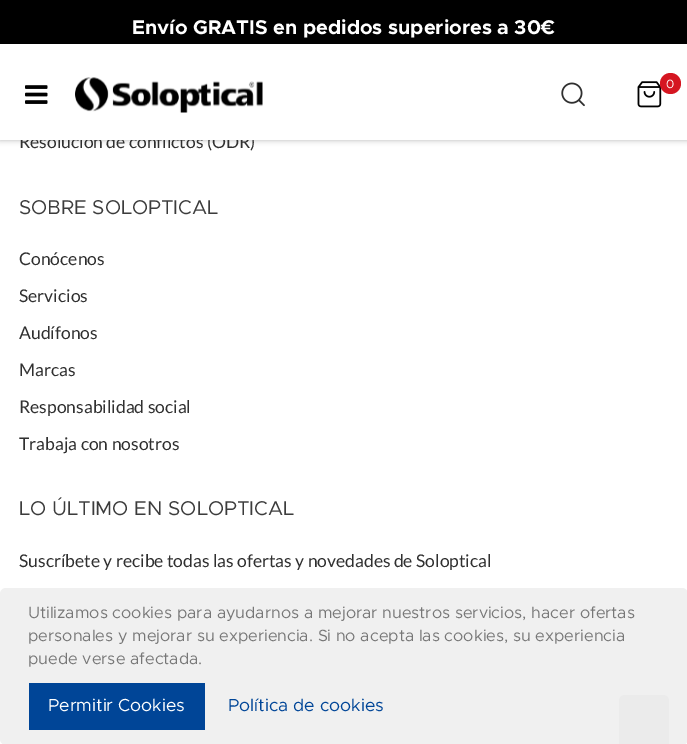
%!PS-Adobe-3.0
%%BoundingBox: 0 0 687 744
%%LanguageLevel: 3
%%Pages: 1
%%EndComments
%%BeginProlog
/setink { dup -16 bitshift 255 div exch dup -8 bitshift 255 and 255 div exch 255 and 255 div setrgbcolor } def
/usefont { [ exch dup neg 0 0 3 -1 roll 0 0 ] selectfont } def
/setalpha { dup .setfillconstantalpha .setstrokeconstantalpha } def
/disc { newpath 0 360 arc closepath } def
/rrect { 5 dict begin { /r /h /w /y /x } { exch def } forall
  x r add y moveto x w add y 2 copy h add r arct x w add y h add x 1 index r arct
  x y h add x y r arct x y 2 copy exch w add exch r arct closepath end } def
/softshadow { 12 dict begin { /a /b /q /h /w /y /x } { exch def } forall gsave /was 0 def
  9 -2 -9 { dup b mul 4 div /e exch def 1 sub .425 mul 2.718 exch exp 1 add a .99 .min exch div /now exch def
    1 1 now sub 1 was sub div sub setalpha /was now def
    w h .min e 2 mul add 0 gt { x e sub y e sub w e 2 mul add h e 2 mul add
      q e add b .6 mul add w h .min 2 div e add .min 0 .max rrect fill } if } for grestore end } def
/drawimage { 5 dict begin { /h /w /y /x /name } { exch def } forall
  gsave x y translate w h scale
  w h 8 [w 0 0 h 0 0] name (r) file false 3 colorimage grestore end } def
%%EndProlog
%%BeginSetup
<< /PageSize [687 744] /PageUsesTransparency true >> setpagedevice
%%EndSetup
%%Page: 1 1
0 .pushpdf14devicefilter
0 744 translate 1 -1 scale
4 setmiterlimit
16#FFFFFF setink
0 0 687 744 rectfill
16#000000 setink
0 0 687 44 rectfill
/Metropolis-Bold 20 usefont
16#FFFFFF setink
132 34 moveto (Envío GRATIS en pedidos superiores a 30€) show
16#000000 setink
0 44 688 96 0 3 0.3 softshadow
/Lato-Regular 17.5 usefont
16#303030 setink
19 148 moveto (Resolución de conflictos \(ODR\)) show
16#FFFFFF setink
0 44 687 96 rectfill
(img1.raw) 75 77 188 36 drawimage
(img2.raw) 25 85 23 19 drawimage
(img3.raw) 561 82 24 25 drawimage
(img4.raw) 637 81 25 27 drawimage
16#D51621 setink
670.5 83.5 10.5 disc fill
/Metropolis-Regular 12 usefont
16#FFFFFF setink
666 88 moveto (0) show
/Metropolis-Regular 20 usefont
16#3C3C3C setink
19 214 moveto (SOBRE SOLOPTICAL) show
/Lato-Regular 17.5 usefont
16#303030 setink
[
    [(Conócenos) 19 265]
    [(Servicios) 19 302]
    [(Audífonos) 19 339]
    [(Marcas) 19 376]
    [(Responsabilidad social) 19 413]
    [(Trabaja con nosotros) 19 450]
] { aload pop moveto show } forall
/Metropolis-Regular 20 usefont
16#3C3C3C setink
19 515 moveto (LO ÚLTIMO EN SOLOPTICAL) show
/Lato-Regular 17.5 usefont
16#303030 setink
19 567 moveto (Suscríbete y recibe todas las ofertas y novedades de Soloptical) show
16#F0F0F0 setink
0 588 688 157 6 rrect fill
16#EBEBEB setink
625 695 moveto 663 695 lineto 666.5 695 669 697.5 669 701 curveto 669 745 lineto 619 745 lineto 619 701 lineto 619 697.5 621.5 695 625 695 curveto closepath fill
/Metropolis-Regular 16.25 usefont
16#777777 setink
[
    [(Utilizamos cookies para ayudarnos a mejorar nuestros servicios, hacer ofertas) 28 618]
    [(personales y mejorar su experiencia. Si no acepta las cookies, su experiencia) 28 641]
    [(puede verse afectada.) 28 664]
] { aload pop moveto show } forall
16#004597 setink
29 683 176 47 rectfill
/Metropolis-Regular 17.5 usefont
16#FFFFFF setink
48 711 moveto (Permitir Cookies) show
16#004597 setink
228 711 moveto (Política de cookies) show
.poppdf14devicefilter showpage
%%EOF
